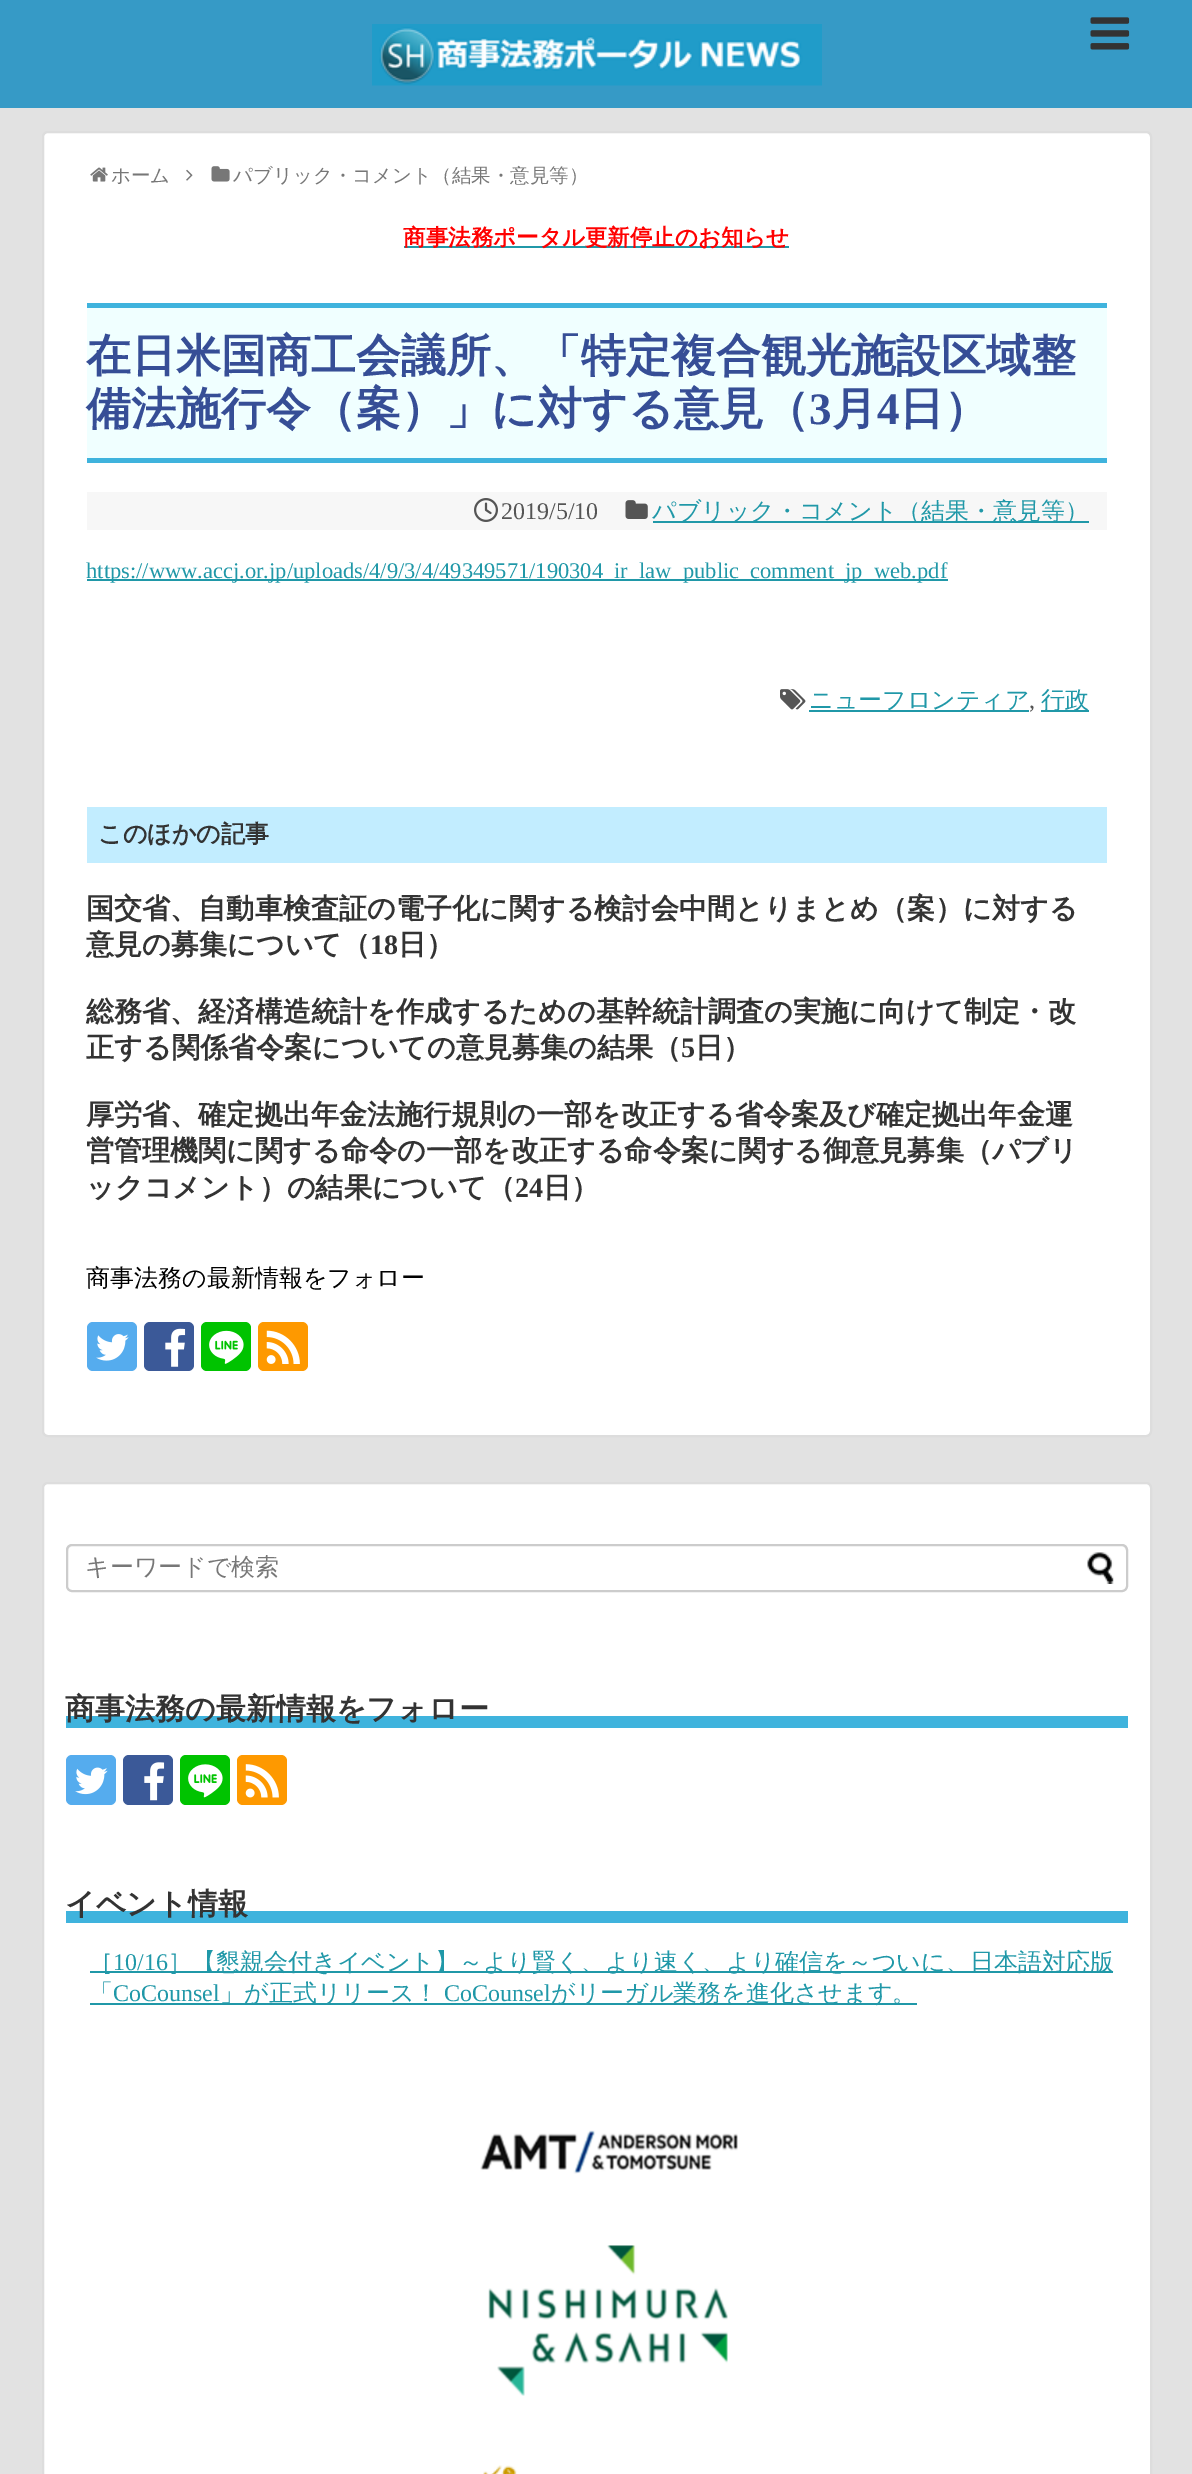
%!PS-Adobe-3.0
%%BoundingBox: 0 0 1192 2474
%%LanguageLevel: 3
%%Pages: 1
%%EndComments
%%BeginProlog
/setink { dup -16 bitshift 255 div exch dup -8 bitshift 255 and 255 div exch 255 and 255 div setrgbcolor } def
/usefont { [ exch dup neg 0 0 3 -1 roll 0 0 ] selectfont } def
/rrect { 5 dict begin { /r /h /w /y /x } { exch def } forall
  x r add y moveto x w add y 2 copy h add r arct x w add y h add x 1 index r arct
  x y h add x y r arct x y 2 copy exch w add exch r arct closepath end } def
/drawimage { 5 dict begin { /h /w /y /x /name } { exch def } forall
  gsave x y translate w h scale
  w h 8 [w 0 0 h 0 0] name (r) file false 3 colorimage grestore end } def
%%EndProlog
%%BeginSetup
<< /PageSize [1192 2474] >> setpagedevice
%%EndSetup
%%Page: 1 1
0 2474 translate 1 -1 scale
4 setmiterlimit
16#E2E2E2 setink
0 0 1192 2474 rectfill
16#369AC6 setink
0 0 1192 108 rectfill
(img1.raw) 372 24 450 62 drawimage
(img2.raw) 1090 17 40 33 drawimage
16#FFFFFF setink
43 132 1108 1304 5 rrect gsave fill grestore
16#DDDDDD setink
2 setlinewidth
stroke
(img3.raw) 90 167 18 15 drawimage
/WenQuanYiZenHei-Medium 19.5 usefont
16#777777 setink
111 182 moveto (ホーム) show
(img4.raw) 186 169 7 12 drawimage
(img5.raw) 211 166 19 16 drawimage
233 182 moveto (パブリック・コメント（結果・意見等）) show
16#2098A8 setink
404 246 385 2 rectfill
/WenQuanYiZenHei-Bold 22.5 usefont
16#FF0000 setink
403 245 moveto (商事法務ポータル更新停止のお知らせ) show
[
    [87 308 1020 150 16#F0FFFF]
    [87 303 1020 5 16#3FB3DD]
    [87 458 1020 5 16#3FB3DD]
] { aload pop setink rectfill } forall
/WenQuanYiZenHei-Bold 45 usefont
16#364E96 setink
86 371 moveto (在日米国商工会議所、「特定複合観光施設区域整) show
86 424 moveto (備法施行令（案）」に対する意見（) show
/LiberationSerif-Bold 45 usefont
809 424 moveto (3) show
/WenQuanYiZenHei-Bold 45 usefont
832 424 moveto (月) show
/LiberationSerif-Bold 45 usefont
877 424 moveto (4) show
/WenQuanYiZenHei-Bold 45 usefont
899 424 moveto (日）) show
16#F7F7F7 setink
87 492 1020 38 rectfill
(img6.raw) 474 498 24 24 drawimage
/LiberationSerif-Regular 24 usefont
16#555555 setink
501 519 moveto (2019/5/10) show
(img7.raw) 625 500 23 19 drawimage
16#2098A8 setink
653 521 436 2 rectfill
/WenQuanYiZenHei-Medium 24 usefont
652 519 moveto (パブリック・コメント（結果・意見等）) show
87 579 861 2 rectfill
/LiberationSerif-Regular 22.5 usefont
86 578 moveto (https://www.accj.or.jp/uploads/4/9/3/4/49349571/190304_ir_law_public_comment_jp_web.pdf) show
(img8.raw) 780 689 26 21 drawimage
809 710 220 2 rectfill
/WenQuanYiZenHei-Medium 24 usefont
809 708 moveto (ニューフロンティア) show
/LiberationSerif-Regular 24 usefont
16#555555 setink
1029 708 moveto (,) show
16#2098A8 setink
1041 710 48 2 rectfill
/WenQuanYiZenHei-Medium 24 usefont
1041 708 moveto (行政) show
16#C2EDFF setink
87 807 1020 56 rectfill
/WenQuanYiZenHei-Bold 24 usefont
16#333333 setink
98 842 moveto (このほかの記事) show
/WenQuanYiZenHei-Bold 28.1 usefont
86 918 moveto (国交省、自動車検査証の電子化に関する検討会中間とりまとめ（案）に対する) show
86 954 moveto (意見の募集について（) show
/LiberationSerif-Bold 28.1 usefont
370 954 moveto (18) show
/WenQuanYiZenHei-Bold 28.1 usefont
[
    [(日）) 398 954]
    [(総務省、経済構造統計を作成するための基幹統計調査の実施に向けて制定・改) 86 1021]
    [(正する関係省令案についての意見募集の結果（) 86 1057]
] { aload pop moveto show } forall
/LiberationSerif-Bold 28.1 usefont
681 1057 moveto (5) show
/WenQuanYiZenHei-Bold 28.1 usefont
[
    [(日）) 695 1057]
    [(厚労省、確定拠出年金法施行規則の一部を改正する省令案及び確定拠出年金運) 86 1124]
    [(営管理機関に関する命令の一部を改正する命令案に関する御意見募集（パブリ) 86 1160]
    [(ックコメント）の結果について（) 86 1197]
] { aload pop moveto show } forall
/LiberationSerif-Bold 28.1 usefont
515 1197 moveto (24) show
/WenQuanYiZenHei-Bold 28.1 usefont
543 1197 moveto (日）) show
/WenQuanYiZenHei-Medium 24 usefont
16#000000 setink
86 1286 moveto (商事法務の最新情報をフォロー) show
16#55ACEE setink
87 1322 50 49 6 rrect fill
(img9.raw) 96 1334 33 27 drawimage
16#3B5998 setink
144 1322 50 49 6 rrect fill
(img10.raw) 165 1328 21 39 drawimage
16#00C300 setink
201 1322 50 49 6 rrect fill
(img11.raw) 209 1330 35 34 drawimage
16#FE9900 setink
258 1322 50 49 6 rrect fill
(img12.raw) 266 1330 34 34 drawimage
16#FFFFFF setink
43 1483 1108 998 5 rrect gsave fill grestore
16#DDDDDD setink
stroke
16#ECECEC setink
72 1546 moveto 1122 1546 lineto 1124 1546 1126 1549 1126 1551 curveto 1126 1588 lineto 1127 1587 1127 1586 1127 1585 curveto 1127 1550 lineto 1127 1547 1125 1545 1122 1545 curveto 73 1545 lineto 70 1545 68 1547 68 1550 curveto 68 1551 lineto 68 1549 70 1546 72 1546 curveto closepath fill
16#CCCCCC setink
67 1545 1060 46 5 rrect stroke
16#777777 setink
85 1575 moveto (キーワードで検索) show
(img13.raw) 1087 1552 27 32 drawimage
16#3FB3DD setink
66 1716 1062 12 rectfill
/WenQuanYiZenHei-Bold 30 usefont
16#333333 setink
65 1719 moveto (商事法務の最新情報をフォロー) show
16#55ACEE setink
66 1755 50 50 6 rrect fill
(img14.raw) 75 1767 33 28 drawimage
16#3B5998 setink
123 1755 50 50 6 rrect fill
(img15.raw) 144 1762 21 39 drawimage
16#00C300 setink
180 1755 50 50 6 rrect fill
(img16.raw) 188 1764 35 34 drawimage
16#FE9900 setink
237 1755 50 50 6 rrect fill
(img17.raw) 245 1764 34 34 drawimage
16#3FB3DD setink
66 1911 1062 12 rectfill
16#333333 setink
65 1914 moveto (イベント情報) show
16#2098A8 setink
90 1971 1023 2 rectfill
/WenQuanYiZenHei-Medium 24 usefont
89 1970 moveto (［) show
/LiberationSerif-Regular 24 usefont
113 1970 moveto (10/16) show
/WenQuanYiZenHei-Medium 24 usefont
168 1970 moveto (］【懇親会付きイベント】～より賢く、より速く、より確信を～ついに、日本語対応版) show
89 2001 moveto (「) show
/LiberationSerif-Regular 24 usefont
113 2001 moveto (CoCounsel) show
90 2003 827 2 rectfill
/WenQuanYiZenHei-Medium 24 usefont
220 2001 moveto (」が正式リリース！) show
/LiberationSerif-Regular 24 usefont
444 2001 moveto (CoCounsel) show
/WenQuanYiZenHei-Medium 24 usefont
551 2001 moveto (がリーガル業務を進化させます。) show
(img18.raw) 480 2130 258 44 drawimage
(img19.raw) 488 2245 240 151 drawimage
(img20.raw) 483 2465 34 9 drawimage
showpage
%%EOF
